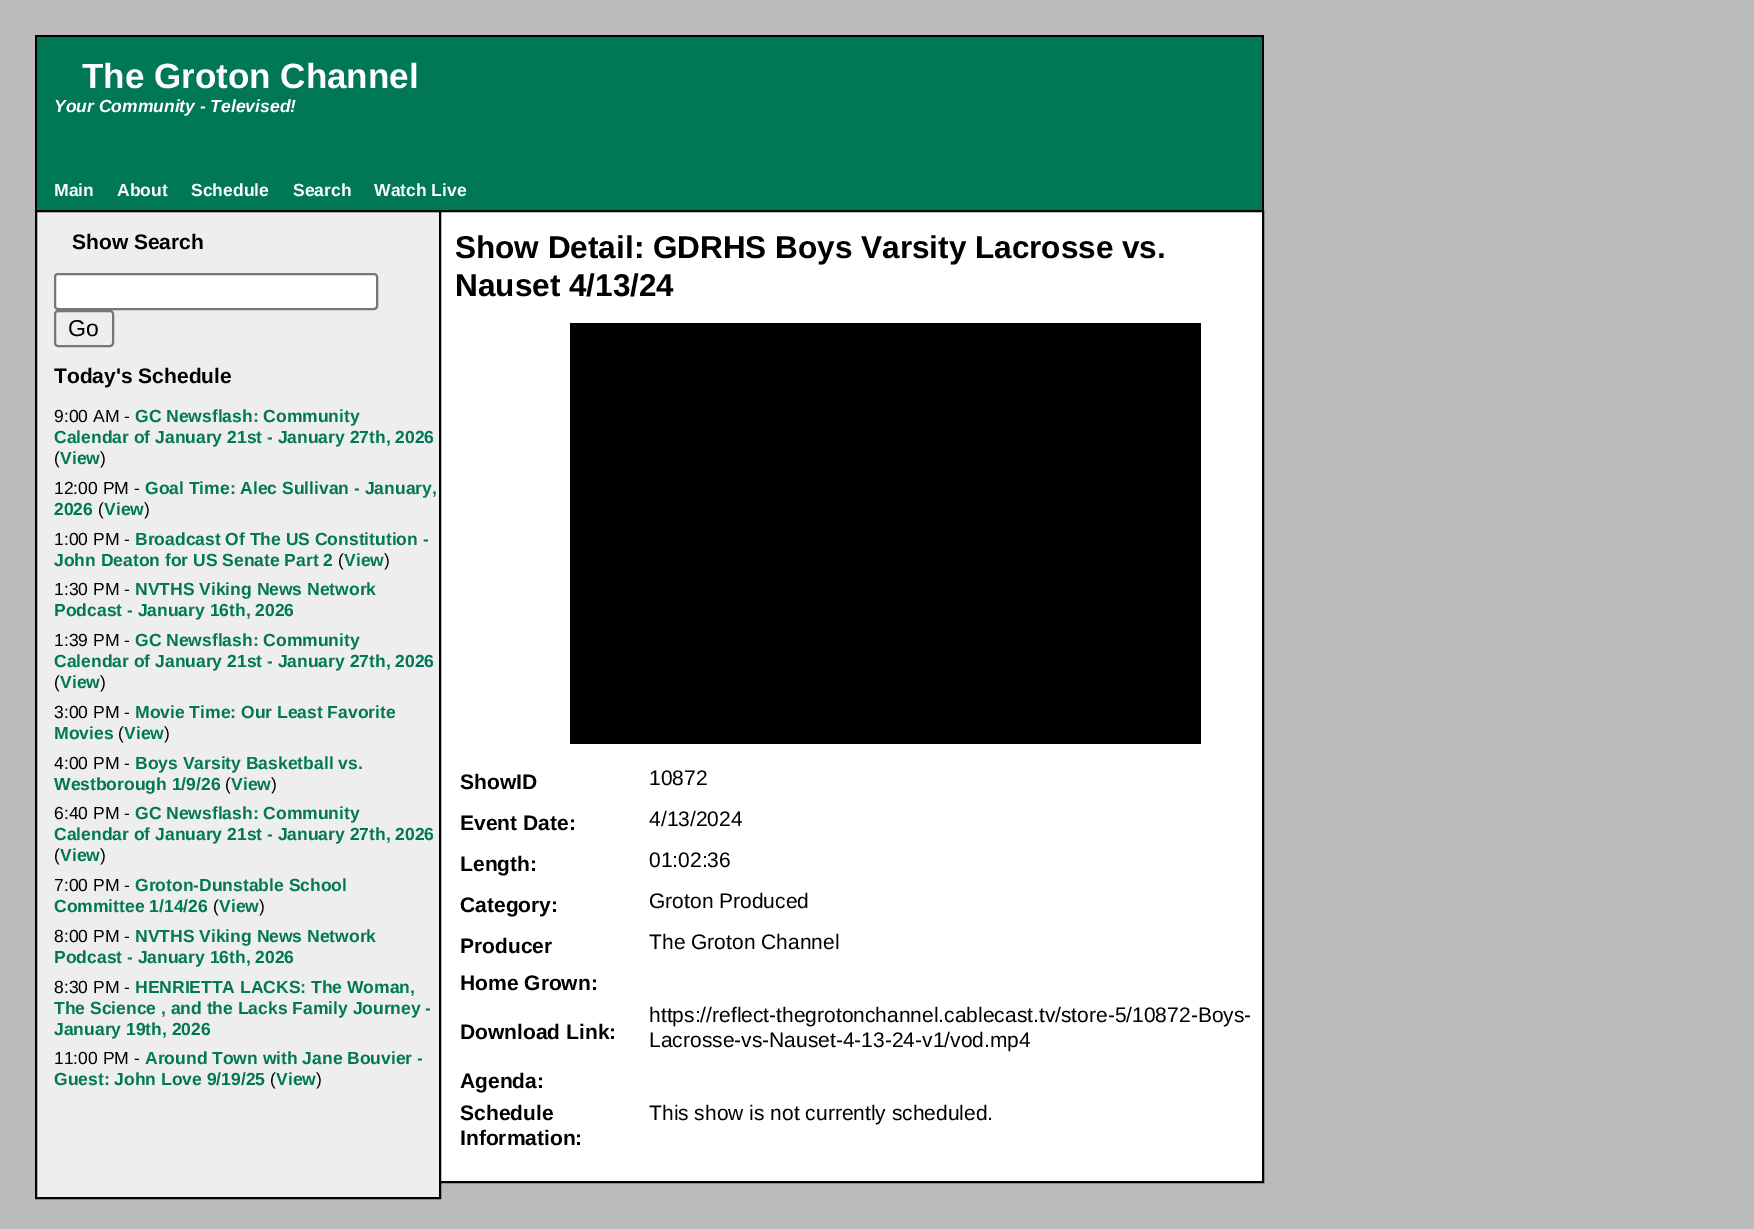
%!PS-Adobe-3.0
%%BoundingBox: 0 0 1754 1229
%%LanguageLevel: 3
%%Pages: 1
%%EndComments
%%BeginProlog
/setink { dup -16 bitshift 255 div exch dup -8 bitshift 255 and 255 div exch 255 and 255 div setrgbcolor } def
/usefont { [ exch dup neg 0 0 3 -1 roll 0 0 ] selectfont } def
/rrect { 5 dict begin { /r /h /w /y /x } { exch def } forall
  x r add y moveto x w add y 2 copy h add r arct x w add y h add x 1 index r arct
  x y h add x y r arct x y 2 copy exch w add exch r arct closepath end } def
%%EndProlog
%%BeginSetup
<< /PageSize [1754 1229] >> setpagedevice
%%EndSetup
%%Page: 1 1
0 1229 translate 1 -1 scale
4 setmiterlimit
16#BBBBBB setink
0 0 1754 1229 rectfill
[
    [37 37 1225 173 16#007755]
    [35 35 1229 2 16#000000]
    [1262 35 2 175 16#000000]
    [35 35 2 175 16#000000]
] { aload pop setink rectfill } forall
/LiberationSans-Bold 35 usefont
16#FFFFFF setink
82 88 moveto (The Groton Channel) show
/LiberationSans-BoldItalic 17.5 usefont
54 112 moveto (Your Community - Televised!) show
/LiberationSans-Bold 17.5 usefont
[
    [(Main) 54 196]
    [(About) 117 196]
    [(Schedule) 191 196]
    [(Search) 293 196]
    [(Watch Live) 374 196]
] { aload pop moveto show } forall
441 212 821 969 rectfill
16#000000 setink
2 setlinewidth
437 211 826 971 rectstroke
16#EEEEEE setink
36 211 moveto 440 211 lineto 440 1198 lineto 36 1198 lineto closepath gsave fill grestore
16#000000 setink
stroke
/LiberationSans-Bold 21 usefont
72 249 moveto (Show Search) show
16#FFFFFF setink
55 274 322 35 3 rrect gsave fill grestore
16#767676 setink
stroke
55 311 58 35 3 rrect stroke
/LiberationSans-Regular 23 usefont
16#000000 setink
68 336 moveto (Go) show
/LiberationSans-Bold 21 usefont
54 383 moveto (Today's Schedule) show
/LiberationSans-Regular 17.5 usefont
54 422 moveto (9:00 AM -) show
/LiberationSans-Bold 17.5 usefont
16#007755 setink
135 422 moveto (GC Newsflash: Community) show
54 443 moveto (Calendar of January 21st - January 27th, 2026) show
/LiberationSans-Regular 17.5 usefont
16#000000 setink
54 464 moveto (\() show
/LiberationSans-Bold 17.5 usefont
16#007755 setink
60 464 moveto (View) show
/LiberationSans-Regular 17.5 usefont
16#000000 setink
100 464 moveto (\)) show
54 494 moveto (12:00 PM -) show
/LiberationSans-Bold 17.5 usefont
16#007755 setink
145 494 moveto (Goal Time: Alec Sullivan - January,) show
54 515 moveto (2026) show
/LiberationSans-Regular 17.5 usefont
16#000000 setink
98 515 moveto (\() show
/LiberationSans-Bold 17.5 usefont
16#007755 setink
104 515 moveto (View) show
/LiberationSans-Regular 17.5 usefont
16#000000 setink
144 515 moveto (\)) show
54 545 moveto (1:00 PM -) show
/LiberationSans-Bold 17.5 usefont
16#007755 setink
135 545 moveto (Broadcast Of The US Constitution -) show
54 566 moveto (John Deaton for US Senate Part 2) show
/LiberationSans-Regular 17.5 usefont
16#000000 setink
338 566 moveto (\() show
/LiberationSans-Bold 17.5 usefont
16#007755 setink
344 566 moveto (View) show
/LiberationSans-Regular 17.5 usefont
16#000000 setink
384 566 moveto (\)) show
54 595 moveto (1:30 PM -) show
/LiberationSans-Bold 17.5 usefont
16#007755 setink
135 595 moveto (NVTHS Viking News Network) show
54 616 moveto (Podcast - January 16th, 2026) show
/LiberationSans-Regular 17.5 usefont
16#000000 setink
54 646 moveto (1:39 PM -) show
/LiberationSans-Bold 17.5 usefont
16#007755 setink
135 646 moveto (GC Newsflash: Community) show
54 667 moveto (Calendar of January 21st - January 27th, 2026) show
/LiberationSans-Regular 17.5 usefont
16#000000 setink
54 688 moveto (\() show
/LiberationSans-Bold 17.5 usefont
16#007755 setink
60 688 moveto (View) show
/LiberationSans-Regular 17.5 usefont
16#000000 setink
100 688 moveto (\)) show
54 718 moveto (3:00 PM -) show
/LiberationSans-Bold 17.5 usefont
16#007755 setink
135 718 moveto (Movie Time: Our Least Favorite) show
54 739 moveto (Movies) show
/LiberationSans-Regular 17.5 usefont
16#000000 setink
118 739 moveto (\() show
/LiberationSans-Bold 17.5 usefont
16#007755 setink
124 739 moveto (View) show
/LiberationSans-Regular 17.5 usefont
16#000000 setink
164 739 moveto (\)) show
54 769 moveto (4:00 PM -) show
/LiberationSans-Bold 17.5 usefont
16#007755 setink
135 769 moveto (Boys Varsity Basketball vs.) show
54 790 moveto (Westborough 1/9/26) show
/LiberationSans-Regular 17.5 usefont
16#000000 setink
225 790 moveto (\() show
/LiberationSans-Bold 17.5 usefont
16#007755 setink
231 790 moveto (View) show
/LiberationSans-Regular 17.5 usefont
16#000000 setink
271 790 moveto (\)) show
54 819 moveto (6:40 PM -) show
/LiberationSans-Bold 17.5 usefont
16#007755 setink
135 819 moveto (GC Newsflash: Community) show
54 840 moveto (Calendar of January 21st - January 27th, 2026) show
/LiberationSans-Regular 17.5 usefont
16#000000 setink
54 861 moveto (\() show
/LiberationSans-Bold 17.5 usefont
16#007755 setink
60 861 moveto (View) show
/LiberationSans-Regular 17.5 usefont
16#000000 setink
100 861 moveto (\)) show
54 891 moveto (7:00 PM -) show
/LiberationSans-Bold 17.5 usefont
16#007755 setink
135 891 moveto (Groton-Dunstable School) show
54 912 moveto (Committee 1/14/26) show
/LiberationSans-Regular 17.5 usefont
16#000000 setink
213 912 moveto (\() show
/LiberationSans-Bold 17.5 usefont
16#007755 setink
219 912 moveto (View) show
/LiberationSans-Regular 17.5 usefont
16#000000 setink
259 912 moveto (\)) show
54 942 moveto (8:00 PM -) show
/LiberationSans-Bold 17.5 usefont
16#007755 setink
135 942 moveto (NVTHS Viking News Network) show
54 963 moveto (Podcast - January 16th, 2026) show
/LiberationSans-Regular 17.5 usefont
16#000000 setink
54 993 moveto (8:30 PM -) show
/LiberationSans-Bold 17.5 usefont
16#007755 setink
[
    [(HENRIETTA LACKS: The Woman,) 135 993]
    [(The Science , and the Lacks Family Journey -) 54 1014]
    [(January 19th, 2026) 54 1035]
] { aload pop moveto show } forall
/LiberationSans-Regular 17.5 usefont
16#000000 setink
54 1064 moveto (11:00 PM -) show
/LiberationSans-Bold 17.5 usefont
16#007755 setink
145 1064 moveto (Around Town with Jane Bouvier -) show
54 1085 moveto (Guest: John Love 9/19/25) show
/LiberationSans-Regular 17.5 usefont
16#000000 setink
270 1085 moveto (\() show
/LiberationSans-Bold 17.5 usefont
16#007755 setink
276 1085 moveto (View) show
/LiberationSans-Regular 17.5 usefont
16#000000 setink
316 1085 moveto (\)) show
/LiberationSans-Bold 31.5 usefont
455 258 moveto (Show Detail: GDRHS Boys Varsity Lacrosse vs.) show
455 296 moveto (Nauset 4/13/24) show
570 323 631 421 rectfill
/LiberationSans-Bold 21 usefont
460 789 moveto (ShowID) show
/LiberationSans-Regular 21 usefont
649 785 moveto (10872) show
/LiberationSans-Bold 21 usefont
460 830 moveto (Event Date:) show
/LiberationSans-Regular 21 usefont
649 826 moveto (4/13/2024) show
/LiberationSans-Bold 21 usefont
460 871 moveto (Length:) show
/LiberationSans-Regular 21 usefont
649 867 moveto (01:02:36) show
/LiberationSans-Bold 21 usefont
460 912 moveto (Category:) show
/LiberationSans-Regular 21 usefont
649 908 moveto (Groton Produced) show
/LiberationSans-Bold 21 usefont
460 953 moveto (Producer) show
/LiberationSans-Regular 21 usefont
649 949 moveto (The Groton Channel) show
/LiberationSans-Bold 21 usefont
460 990 moveto (Home Grown:) show
460 1039 moveto (Download Link:) show
/LiberationSans-Regular 21 usefont
649 1022 moveto (https://reflect-thegrotonchannel.cablecast.tv/store-5/10872-Boys-) show
649 1047 moveto (Lacrosse-vs-Nauset-4-13-24-v1/vod.mp4) show
/LiberationSans-Bold 21 usefont
[
    [(Agenda:) 460 1088]
    [(Schedule) 460 1120]
    [(Information:) 460 1145]
] { aload pop moveto show } forall
/LiberationSans-Regular 21 usefont
649 1120 moveto (This show is not currently scheduled.) show
showpage
%%EOF
